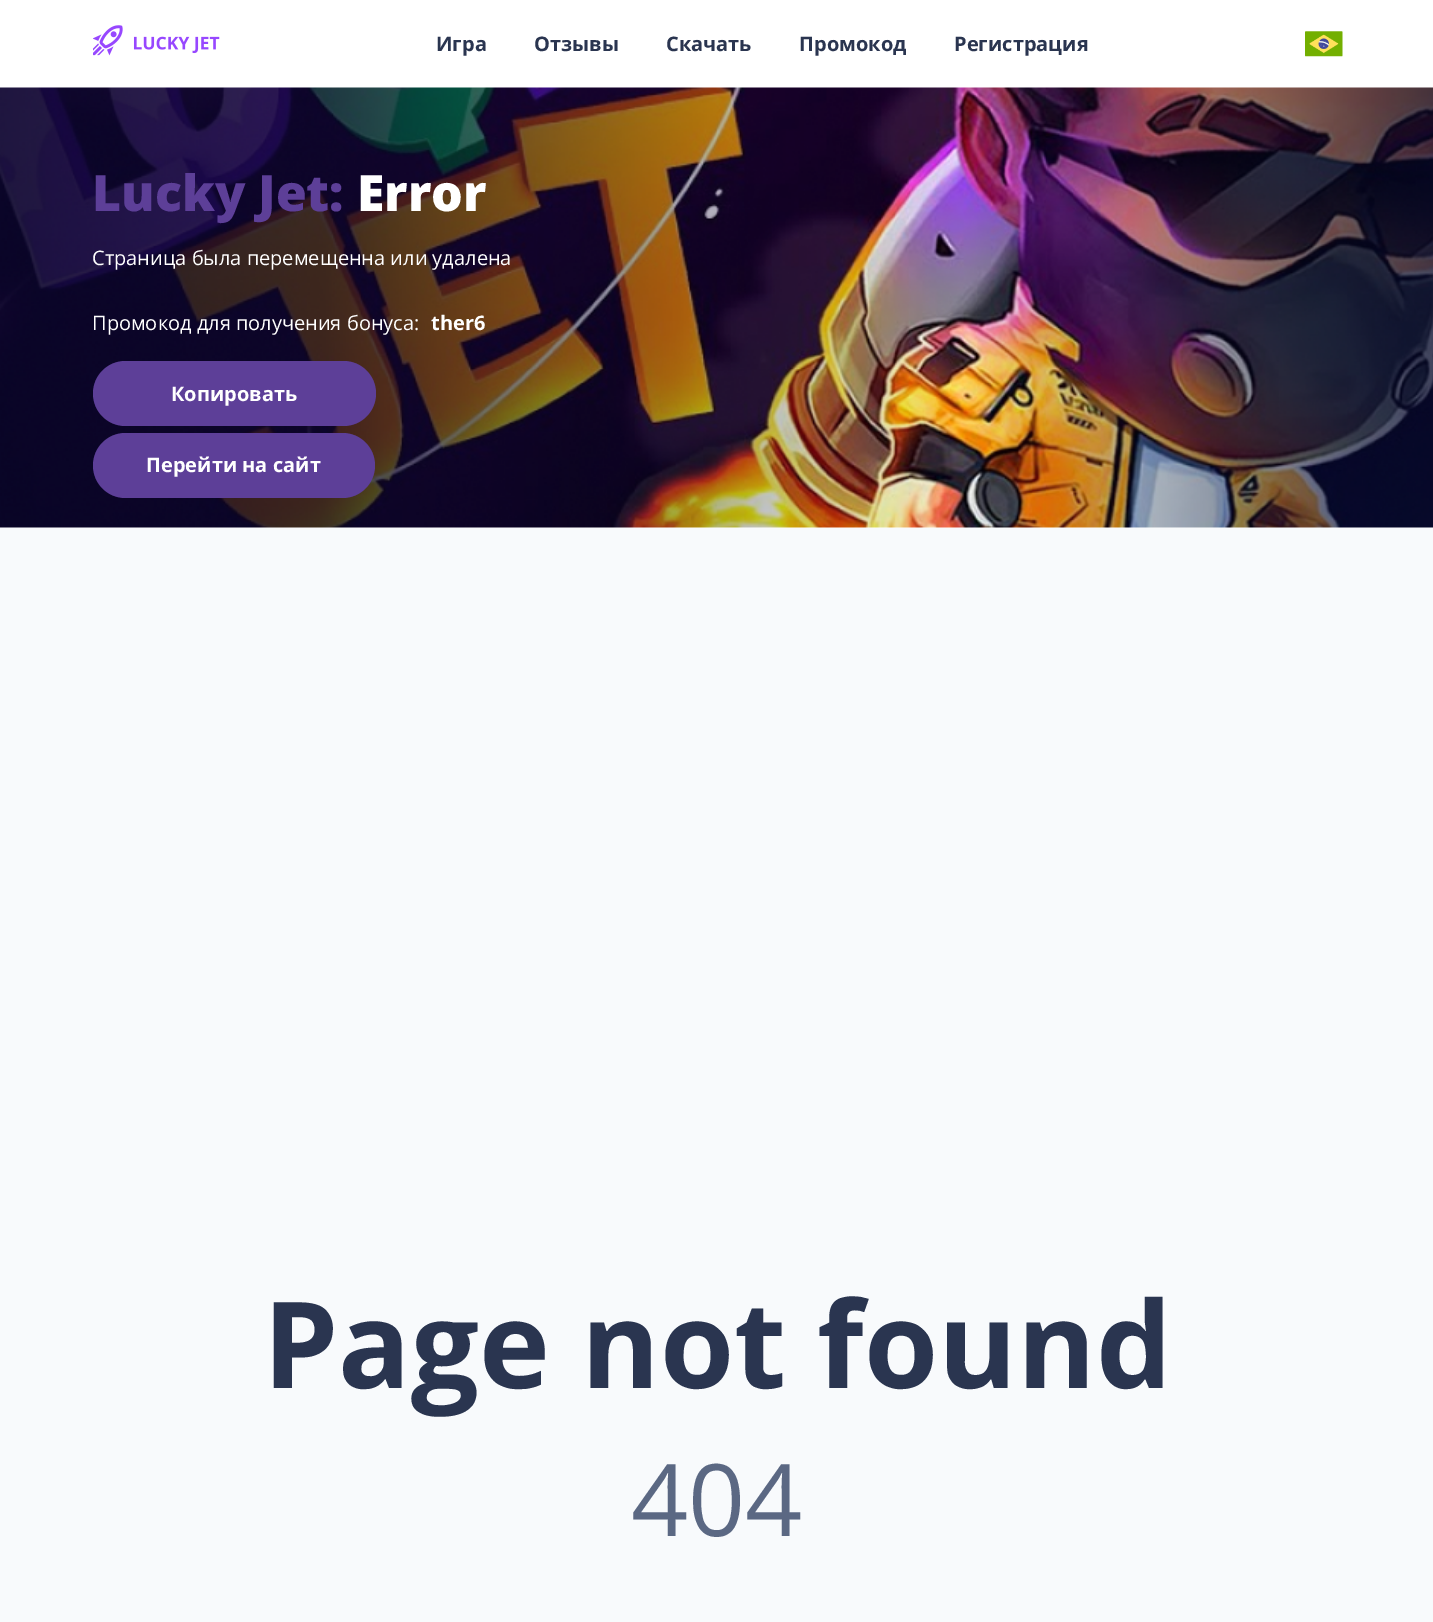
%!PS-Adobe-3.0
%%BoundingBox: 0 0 1433 1622
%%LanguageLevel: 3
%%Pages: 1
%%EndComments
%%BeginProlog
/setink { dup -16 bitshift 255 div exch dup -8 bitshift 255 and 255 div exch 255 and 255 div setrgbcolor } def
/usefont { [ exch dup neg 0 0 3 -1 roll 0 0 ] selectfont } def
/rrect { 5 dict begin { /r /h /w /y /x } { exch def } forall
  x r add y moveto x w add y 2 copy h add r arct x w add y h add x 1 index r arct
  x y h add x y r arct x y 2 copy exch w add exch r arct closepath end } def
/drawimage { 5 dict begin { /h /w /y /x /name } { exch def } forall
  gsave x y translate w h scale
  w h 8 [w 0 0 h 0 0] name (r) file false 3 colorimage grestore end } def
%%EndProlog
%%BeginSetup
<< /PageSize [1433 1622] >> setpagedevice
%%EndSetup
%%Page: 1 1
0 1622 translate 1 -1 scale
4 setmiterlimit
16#FFFFFF setink
0 0 1433 1622 rectfill
(img1.raw) 93 25 127 31 drawimage
/OpenSans-Bold 20 usefont
16#2A3550 setink
[
    [(Игра) 436 51]
    [(Отзывы) 534 51]
    [(Скачать) 666 51]
    [(Промокод) 799 51]
    [(Регистрация) 954 51]
] { aload pop moveto show } forall
(img2.raw) 1305 31 38 26 drawimage
(img3.raw) 0 87 1433 441 drawimage
/OpenSans-ExtraBold 50 usefont
16#5D3F98 setink
92 211 moveto (Lucky Jet:) show
16#FFFFFF setink
357 211 moveto (Error) show
/OpenSans-Regular 20 usefont
92 265 moveto (Страница была перемещенна или удалена) show
92 330 moveto (Промокод для полyчения бонуса:) show
/OpenSans-Bold 20 usefont
431 330 moveto (ther6) show
16#5D3F98 setink
93 361 283 65 32.5 rrect fill
16#FFFFFF setink
171 401 moveto (Копировать) show
16#5D3F98 setink
93 433 282 65 32.5 rrect fill
16#FFFFFF setink
146 472 moveto (Перейти на сайт) show
16#F8FAFC setink
0 528 1433 1094 rectfill
/OpenSans-Bold 120 usefont
16#2A3550 setink
263 1388 moveto (Page not found) show
/OpenSans-Regular 100 usefont
16#5B6883 setink
631 1536 moveto (404) show
showpage
%%EOF
